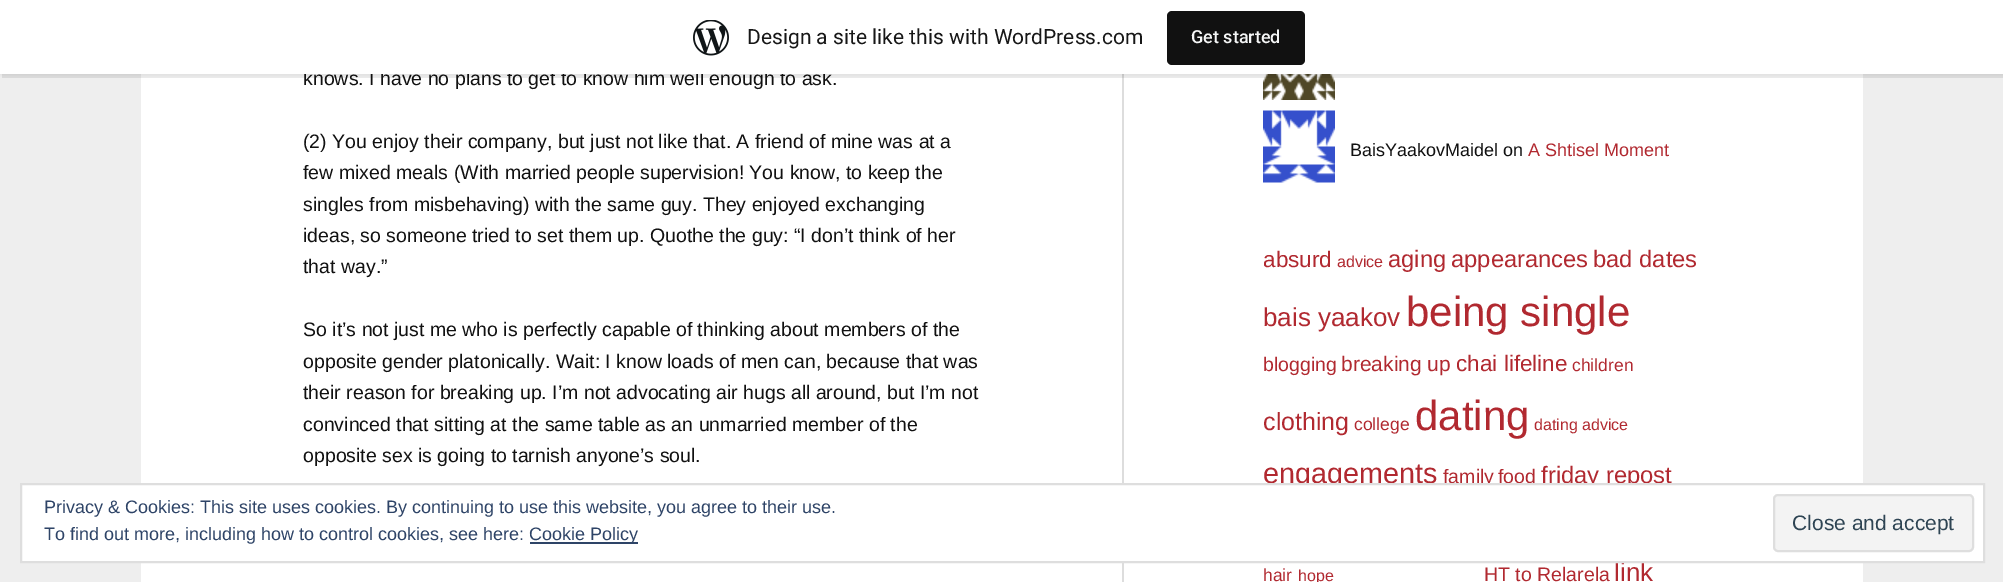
%!PS-Adobe-3.0
%%BoundingBox: 0 0 2003 582
%%LanguageLevel: 3
%%Pages: 1
%%EndComments
%%BeginProlog
/setink { dup -16 bitshift 255 div exch dup -8 bitshift 255 and 255 div exch 255 and 255 div setrgbcolor } def
/usefont { [ exch dup neg 0 0 3 -1 roll 0 0 ] selectfont } def
/setalpha { dup .setfillconstantalpha .setstrokeconstantalpha } def
/rrect { 5 dict begin { /r /h /w /y /x } { exch def } forall
  x r add y moveto x w add y 2 copy h add r arct x w add y h add x 1 index r arct
  x y h add x y r arct x y 2 copy exch w add exch r arct closepath end } def
/softshadow { 12 dict begin { /a /b /q /h /w /y /x } { exch def } forall gsave /was 0 def
  9 -2 -9 { dup b mul 4 div /e exch def 1 sub .425 mul 2.718 exch exp 1 add a .99 .min exch div /now exch def
    1 1 now sub 1 was sub div sub setalpha /was now def
    w h .min e 2 mul add 0 gt { x e sub y e sub w e 2 mul add h e 2 mul add
      q e add b .6 mul add w h .min 2 div e add .min 0 .max rrect fill } if } for grestore end } def
/drawimage { 5 dict begin { /h /w /y /x /name } { exch def } forall
  gsave x y translate w h scale
  w h 8 [w 0 0 h 0 0] name (r) file false 3 colorimage grestore end } def
%%EndProlog
%%BeginSetup
<< /PageSize [2003 582] /PageUsesTransparency true >> setpagedevice
%%EndSetup
%%Page: 1 1
0 .pushpdf14devicefilter
0 582 translate 1 -1 scale
4 setmiterlimit
16#EEEEEE setink
0 0 2003 582 rectfill
16#FFFFFF setink
141 74 1722 508 rectfill
16#DDDDDD setink
1122 74 2 508 rectfill
(img2.raw) 1263 74 72 26 drawimage
16#000000 setink
0 2 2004 73 0 1.5 0.05 softshadow
0.08 setalpha
2 74 moveto 2 78 lineto 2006 78 lineto 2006 5 lineto 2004 5 lineto 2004 74 lineto closepath fill
/LiberationSans-Regular 19.5 usefont
1 setalpha
16#111111 setink
303 85 moveto (knows. I have no plans to get to know him well enough to ask.) show
16#FFFFFF setink
0 0 2003 74 rectfill
(img1.raw) 693 20 36 36 drawimage
/Roboto-Regular 21 usefont
16#171717 setink
747 44 moveto (Design a site like this with WordPress.com) show
16#111111 setink
1167 11 138 54 5 rrect fill
/Roboto-Medium 18 usefont
16#F6F7F7 setink
1191 43 moveto (Get started) show
/LiberationSans-Regular 19.5 usefont
16#111111 setink
[
    [(\(2\) You enjoy their company, but just not like that. A friend of mine was at a) 303 148]
    [(few mixed meals \(With married people supervision! You know, to keep the) 303 179]
    [(singles from misbehaving\) with the same guy. They enjoyed exchanging) 303 211]
    [(ideas, so someone tried to set them up. Quothe the guy: “I don’t think of her) 303 242]
    [(that way.”) 303 273]
    [(So it’s not just me who is perfectly capable of thinking about members of the) 303 336]
    [(opposite gender platonically. Wait: I know loads of men can, because that was) 303 368]
    [(their reason for breaking up. I’m not advocating air hugs all around, but I’m not) 303 399]
    [(convinced that sitting at the same table as an unmarried member of the) 303 431]
    [(opposite sex is going to tarnish anyone’s soul.) 303 462]
] { aload pop moveto show } forall
(img3.raw) 1263 110 72 73 drawimage
/LiberationSans-Regular 18 usefont
1350 156 moveto (BaisYaakovMaidel on) show
16#B12930 setink
1528 156 moveto (A Shtisel Moment) show
/LiberationSans-Regular 22.5 usefont
1263 267 moveto (absurd) show
/LiberationSans-Regular 16 usefont
1337 267 moveto (advice) show
/LiberationSans-Regular 23.75 usefont
[
    [(aging) 1388 267]
    [(appearances) 1451 267]
    [(bad dates) 1593 267]
] { aload pop moveto show } forall
/LiberationSans-Regular 26 usefont
1263 326 moveto (bais yaakov) show
/LiberationSans-Regular 42 usefont
1406 326 moveto (being single) show
/LiberationSans-Regular 19.5 usefont
1263 371 moveto (blogging) show
/LiberationSans-Regular 21 usefont
1341 371 moveto (breaking up) show
/LiberationSans-Regular 22.5 usefont
1456 371 moveto (chai lifeline) show
/LiberationSans-Regular 17.5 usefont
1572 371 moveto (children) show
/LiberationSans-Regular 25 usefont
1263 430 moveto (clothing) show
/LiberationSans-Regular 17.5 usefont
1354 430 moveto (college) show
/LiberationSans-Regular 42 usefont
1415 430 moveto (dating) show
/LiberationSans-Regular 16 usefont
1534 430 moveto (dating advice) show
/LiberationSans-Regular 28.75 usefont
1263 483 moveto (engagements) show
/LiberationSans-Regular 19.5 usefont
1443 483 moveto (family) show
1498 483 moveto (food) show
/LiberationSans-Regular 23.75 usefont
1541 483 moveto (friday repost) show
/LiberationSans-Regular 17.5 usefont
1263 581 moveto (hair) show
/LiberationSans-Regular 16 usefont
1298 581 moveto (hope) show
/LiberationSans-Regular 19.5 usefont
1484 581 moveto (HT to Relarela) show
/LiberationSans-Regular 26 usefont
1614 581 moveto (link) show
16#FFFFFF setink
21 484 moveto 1984 484 lineto 1984 562 lineto 21 562 lineto closepath gsave fill grestore
16#DEDEDE setink
2 setlinewidth
stroke
/LiberationSans-Regular 18 usefont
16#2E4467 setink
44 513 moveto (Privacy & Cookies: This site uses cookies. By continuing to use this website, you agree to their use.) show
44 540 moveto (To find out more, including how to control cookies, see here:) show
530 542 108 2 rectfill
529 540 moveto (Cookie Policy) show
16#F3F3F3 setink
1774 495 199 56 4 rrect gsave fill grestore
16#DEDEDE setink
stroke
/LiberationSans-Regular 21 usefont
16#2E4453 setink
1792 530 moveto (Close and accept) show
.poppdf14devicefilter showpage
%%EOF
